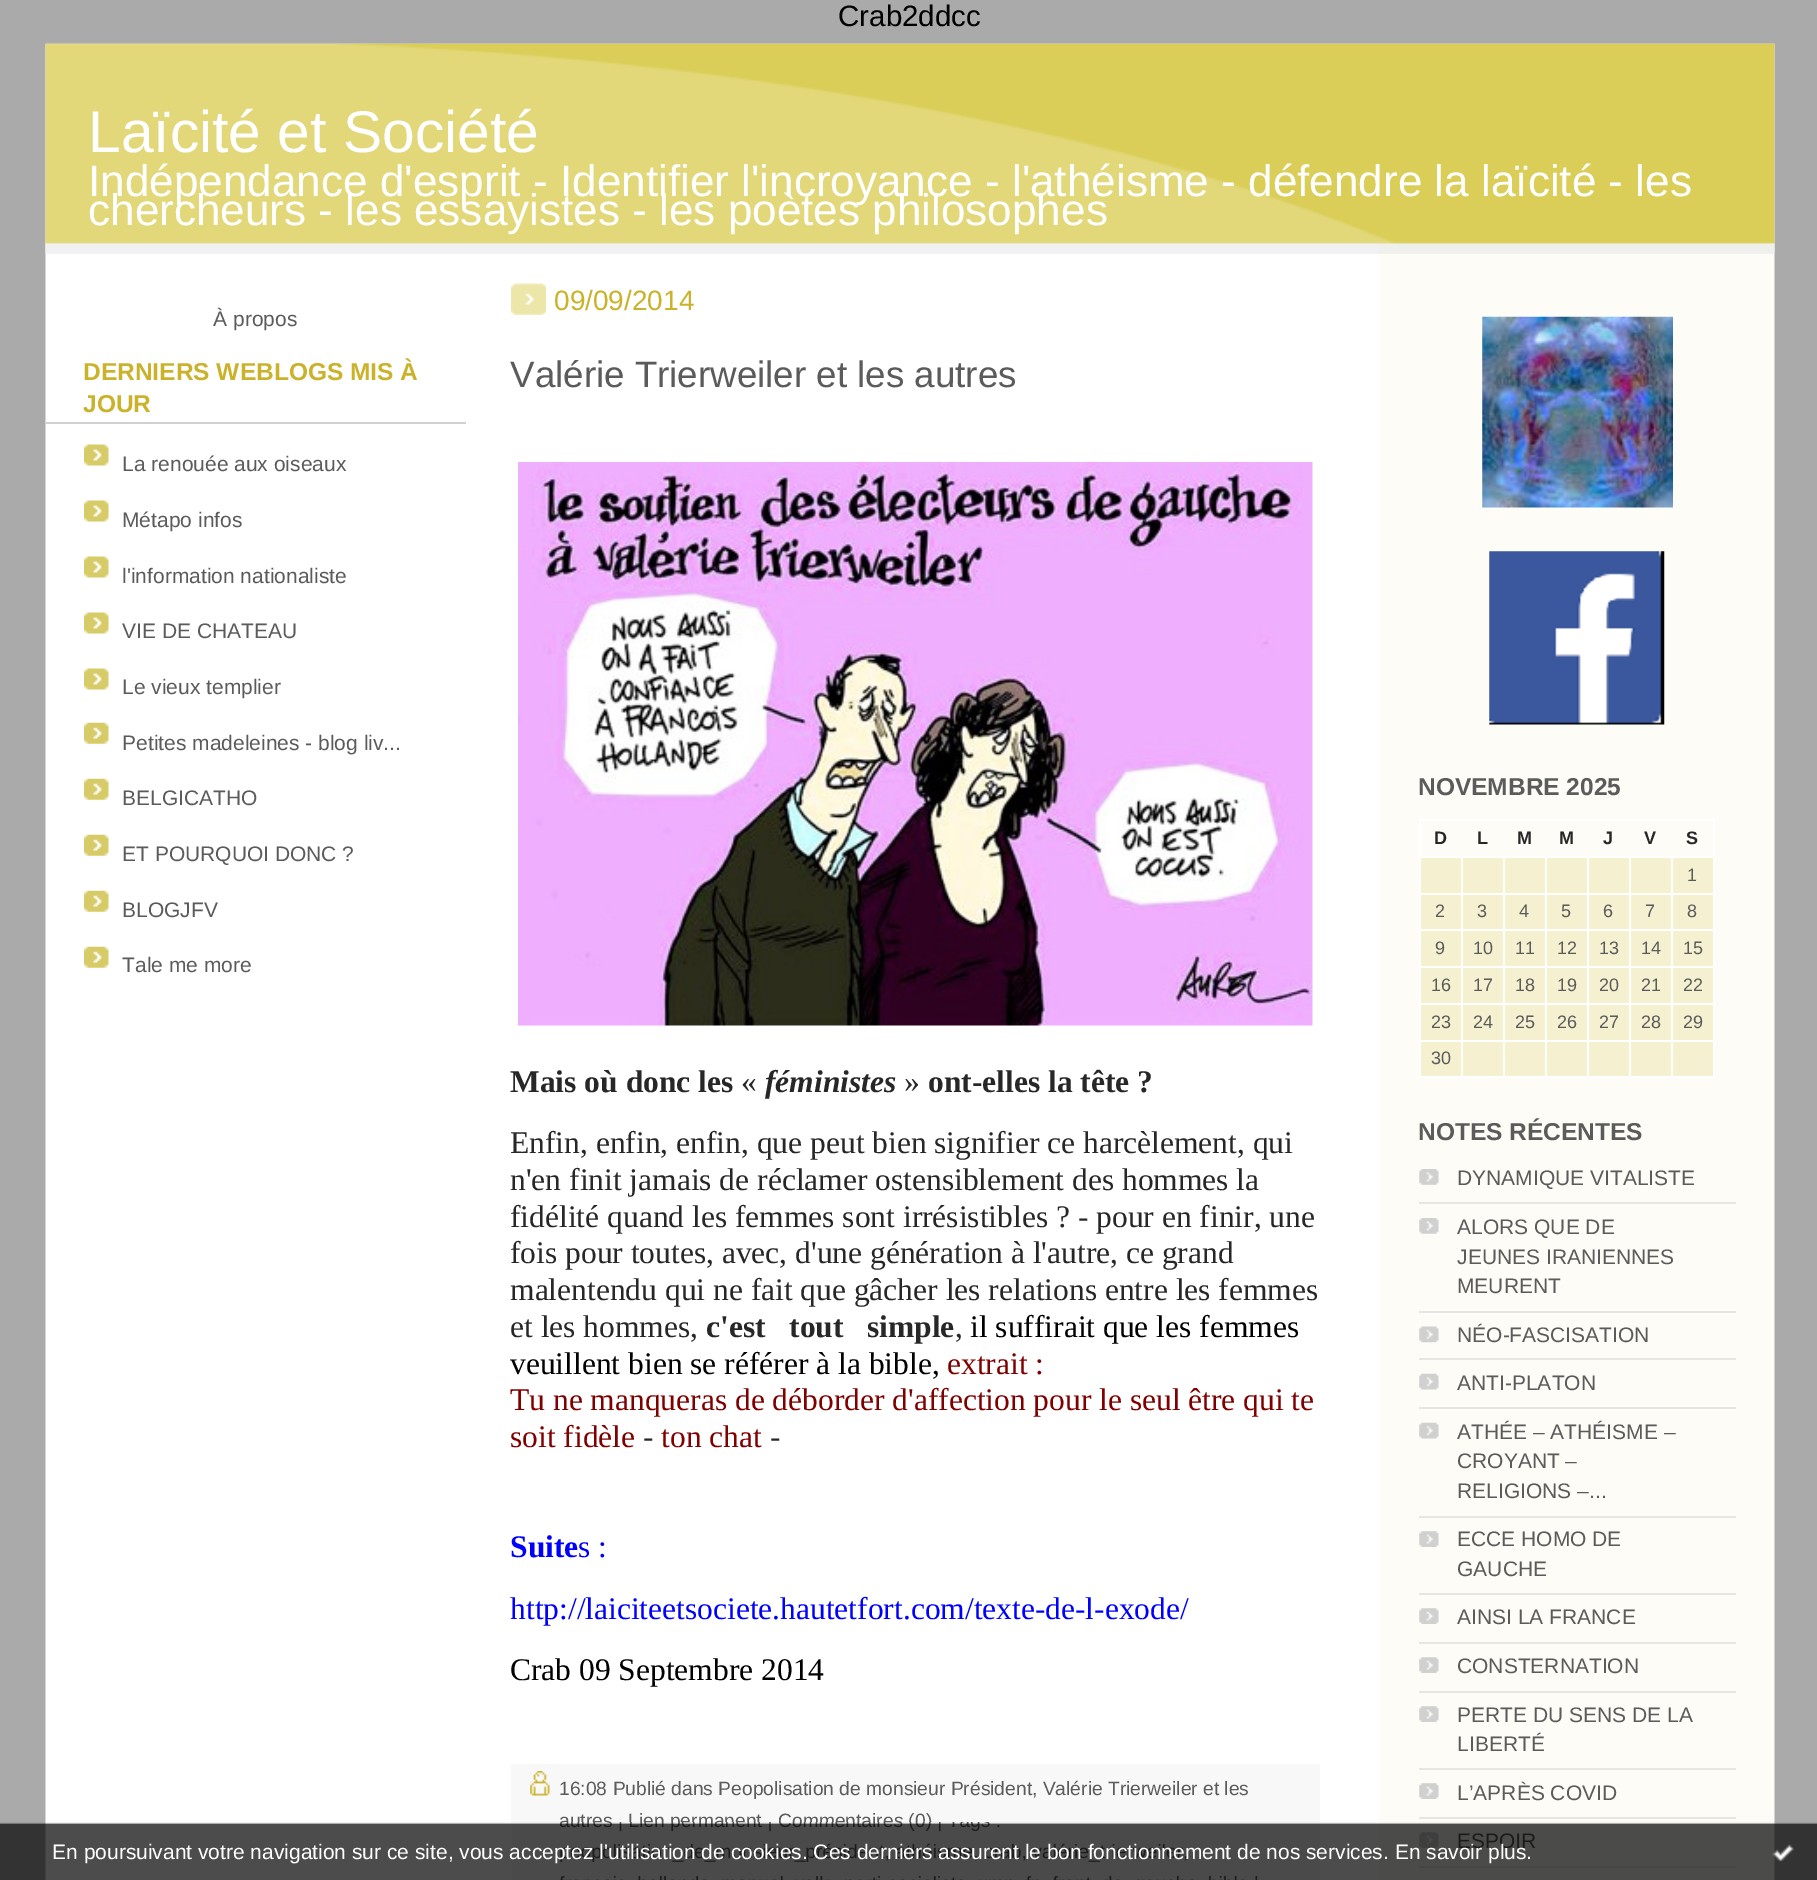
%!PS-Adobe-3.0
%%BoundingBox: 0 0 1817 1880
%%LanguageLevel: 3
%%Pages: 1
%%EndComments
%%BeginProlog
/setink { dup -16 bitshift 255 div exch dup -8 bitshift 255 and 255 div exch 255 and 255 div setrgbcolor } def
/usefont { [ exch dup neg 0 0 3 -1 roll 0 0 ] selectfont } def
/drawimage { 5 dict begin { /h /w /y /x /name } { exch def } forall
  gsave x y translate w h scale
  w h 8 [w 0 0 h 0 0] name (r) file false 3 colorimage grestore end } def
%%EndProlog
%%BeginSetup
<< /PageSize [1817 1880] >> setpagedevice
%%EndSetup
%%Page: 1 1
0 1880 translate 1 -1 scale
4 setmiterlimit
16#AAAAAA setink
0 0 1817 1880 rectfill
/LiberationSans-Regular 29.5 usefont
16#000000 setink
838 26 moveto (Crab2ddcc) show
(img1.raw) 45 43 1730 1837 drawimage
(img2.raw) 45 43 1730 211 drawimage
/LiberationSans-Regular 58.75 usefont
16#FFFFFF setink
88 152 moveto (Laïcité et Société) show
/LiberationSans-Regular 44.1 usefont
88 196 moveto (Indépendance d'esprit - Identifier l'incroyance - l'athéisme - défendre la laïcité - les) show
88 225 moveto (chercheurs - les essayistes - les poètes philosophes) show
/LiberationSans-Regular 21 usefont
16#5B5B5B setink
213 326 moveto (À propos) show
16#D0D0D0 setink
46 422 420 2 rectfill
/LiberationSans-Bold 24.5 usefont
16#CAB22A setink
83 380 moveto (DERNIERS WEBLOGS MIS À) show
83 412 moveto (JOUR) show
(img3.raw) 84 444 25 22 drawimage
/LiberationSans-Regular 21 usefont
16#5B5B5B setink
122 471 moveto (La renouée aux oiseaux) show
(img3.raw) 84 500 25 22 drawimage
122 527 moveto (Métapo infos) show
(img3.raw) 84 556 25 22 drawimage
122 583 moveto (l'information nationaliste) show
(img3.raw) 84 612 25 22 drawimage
122 638 moveto (VIE DE CHATEAU) show
(img3.raw) 84 668 25 22 drawimage
122 694 moveto (Le vieux templier) show
(img4.raw) 84 722 25 22 drawimage
122 750 moveto (Petites madeleines - blog liv...) show
(img4.raw) 84 778 25 22 drawimage
122 805 moveto (BELGICATHO) show
(img4.raw) 84 834 25 22 drawimage
122 861 moveto (ET POURQUOI DONC ?) show
(img4.raw) 84 890 25 22 drawimage
122 917 moveto (BLOGJFV) show
(img4.raw) 84 946 25 22 drawimage
122 972 moveto (Tale me more) show
(img5.raw) 511 283 35 32 drawimage
/LiberationSans-Regular 28 usefont
16#CAB22A setink
554 310 moveto (09/09/2014) show
/LiberationSans-Regular 36.75 usefont
16#5B5B5B setink
510 387 moveto (Valérie Trierweiler et les autres) show
(img6.raw) 518 462 795 564 drawimage
/LiberationSerif-Bold 31.5 usefont
16#272727 setink
510 1092 moveto (Mais où donc les) show
/LiberationSerif-Regular 31.5 usefont
741 1092 moveto («) show
/LiberationSerif-BoldItalic 31.5 usefont
765 1092 moveto (féministes) show
/LiberationSerif-Regular 31.5 usefont
904 1092 moveto (») show
/LiberationSerif-Bold 31.5 usefont
928 1092 moveto (ont-elles la tête ?) show
/LiberationSerif-Regular 31.5 usefont
[
    [(Enfin, enfin, enfin, que peut bien signifier ce harcèlement, qui) 510 1153]
    [(n'en finit jamais de réclamer ostensiblement des hommes la) 510 1190]
    [(fidélité quand les femmes sont irrésistibles ? - pour en finir, une) 510 1227]
    [(fois pour toutes, avec, d'une génération à l'autre, ce grand) 510 1263]
    [(malentendu qui ne fait que gâcher les relations entre les femmes) 510 1300]
    [(et les hommes,) 510 1337]
] { aload pop moveto show } forall
/LiberationSerif-Bold 31.5 usefont
706 1337 moveto (c'est   tout   simple) show
/LiberationSerif-Regular 31.5 usefont
955 1337 moveto (,) show
16#000000 setink
970 1337 moveto (il suffirait que les femmes) show
510 1374 moveto (veuillent bien se référer à la bible,) show
16#800000 setink
[
    [(extrait :) 947 1374]
    [(Tu ne manqueras de déborder d'affection pour le seul être qui te) 510 1410]
    [(soit fidèle) 510 1447]
] { aload pop moveto show } forall
16#272727 setink
643 1447 moveto (-) show
16#800000 setink
661 1447 moveto (ton chat) show
16#272727 setink
770 1447 moveto (-) show
/LiberationSerif-Bold 31.5 usefont
16#0000FF setink
510 1557 moveto (Suite) show
/LiberationSerif-Regular 31.5 usefont
578 1557 moveto (s :) show
510 1619 moveto (http://laiciteetsociete.hautetfort.com/texte-de-l-exode/) show
16#000000 setink
510 1680 moveto (Crab 09 Septembre 2014) show
16#F8F8F8 setink
511 1764 809 116 rectfill
(img7.raw) 530 1771 20 25 drawimage
/LiberationSans-Regular 19.25 usefont
16#5B5B5B setink
[
    [(16:08 Publié dans Peopolisation de monsieur Président, Valérie Trierweiler et les) 559 1795]
    [(autres) 559 1827]
    [(Lien permanent) 628 1827]
    [(Commentaires \(0\)) 778 1827]
] { aload pop moveto show } forall
(img8.raw) 1482 316 191 192 drawimage
(img9.raw) 1489 551 176 174 drawimage
/LiberationSans-Bold 24.5 usefont
1418 795 moveto (NOVEMBRE 2025) show
[
    [1421 858 292 218 16#F5F1D0]
    [1419 819 296 2 16#FFFFFF]
    [1713 819 2 259 16#FFFFFF]
    [1419 1076 296 2 16#FFFFFF]
    [1419 819 2 259 16#FFFFFF]
] { aload pop setink rectfill } forall
/LiberationSans-Bold 18 usefont
16#272727 setink
[
    [(D) 1434 844]
    [(L) 1477 844]
    [(M) 1517 844]
    [(M) 1559 844]
    [(J) 1603 844]
    [(V) 1644 844]
    [(S) 1686 844]
] { aload pop moveto show } forall
[
    [1671 856 44 2 16#FFFFFF]
    [1671 893 44 2 16#FFFFFF]
    [1671 929 44 2 16#FFFFFF]
    [1671 966 44 2 16#FFFFFF]
    [1671 1003 44 2 16#FFFFFF]
    [1671 1040 44 2 16#FFFFFF]
    [1671 1040 2 38 16#FFFFFF]
    [1629 1040 44 2 16#FFFFFF]
    [1671 1003 2 38 16#FFFFFF]
    [1629 1003 44 2 16#FFFFFF]
    [1671 966 2 39 16#FFFFFF]
    [1629 966 44 2 16#FFFFFF]
    [1671 929 2 39 16#FFFFFF]
    [1629 929 44 2 16#FFFFFF]
    [1671 893 2 38 16#FFFFFF]
    [1629 893 44 2 16#FFFFFF]
    [1671 856 2 38 16#FFFFFF]
    [1629 856 44 2 16#FFFFFF]
    [1629 1040 2 38 16#FFFFFF]
    [1587 1040 44 2 16#FFFFFF]
    [1629 1003 2 38 16#FFFFFF]
    [1587 1003 44 2 16#FFFFFF]
    [1629 966 2 39 16#FFFFFF]
    [1587 966 44 2 16#FFFFFF]
    [1629 929 2 39 16#FFFFFF]
    [1587 929 44 2 16#FFFFFF]
    [1629 893 2 38 16#FFFFFF]
    [1587 893 44 2 16#FFFFFF]
    [1629 856 2 38 16#FFFFFF]
    [1587 856 44 2 16#FFFFFF]
    [1587 1040 2 38 16#FFFFFF]
    [1545 1040 44 2 16#FFFFFF]
    [1587 1003 2 38 16#FFFFFF]
    [1545 1003 44 2 16#FFFFFF]
    [1587 966 2 39 16#FFFFFF]
    [1545 966 44 2 16#FFFFFF]
    [1587 929 2 39 16#FFFFFF]
    [1545 929 44 2 16#FFFFFF]
    [1587 893 2 38 16#FFFFFF]
    [1545 893 44 2 16#FFFFFF]
    [1587 856 2 38 16#FFFFFF]
    [1545 856 44 2 16#FFFFFF]
    [1545 1040 2 38 16#FFFFFF]
    [1503 1040 44 2 16#FFFFFF]
    [1545 1003 2 38 16#FFFFFF]
    [1503 1003 44 2 16#FFFFFF]
    [1545 966 2 39 16#FFFFFF]
    [1503 966 44 2 16#FFFFFF]
    [1545 929 2 39 16#FFFFFF]
    [1503 929 44 2 16#FFFFFF]
    [1545 893 2 38 16#FFFFFF]
    [1503 893 44 2 16#FFFFFF]
    [1545 856 2 38 16#FFFFFF]
    [1503 856 44 2 16#FFFFFF]
    [1503 1040 2 38 16#FFFFFF]
    [1461 1040 44 2 16#FFFFFF]
    [1503 1003 2 38 16#FFFFFF]
    [1461 1003 44 2 16#FFFFFF]
    [1503 966 2 39 16#FFFFFF]
    [1461 966 44 2 16#FFFFFF]
    [1503 929 2 39 16#FFFFFF]
    [1461 929 44 2 16#FFFFFF]
    [1503 893 2 38 16#FFFFFF]
    [1461 893 44 2 16#FFFFFF]
    [1503 856 2 38 16#FFFFFF]
    [1461 856 44 2 16#FFFFFF]
    [1461 1040 2 38 16#FFFFFF]
    [1419 1040 44 2 16#FFFFFF]
    [1461 1003 2 38 16#FFFFFF]
    [1419 1003 44 2 16#FFFFFF]
    [1461 966 2 39 16#FFFFFF]
    [1419 966 44 2 16#FFFFFF]
    [1461 929 2 39 16#FFFFFF]
    [1419 929 44 2 16#FFFFFF]
    [1461 893 2 38 16#FFFFFF]
    [1419 893 44 2 16#FFFFFF]
    [1461 856 2 38 16#FFFFFF]
    [1419 856 44 2 16#FFFFFF]
] { aload pop setink rectfill } forall
/LiberationSans-Regular 18 usefont
16#5B5B5B setink
[
    [(1) 1687 881]
    [(2) 1435 917]
    [(3) 1477 917]
    [(4) 1519 917]
    [(5) 1561 917]
    [(6) 1603 917]
    [(7) 1645 917]
    [(8) 1687 917]
    [(9) 1435 954]
    [(10) 1473 954]
    [(11) 1515 954]
    [(12) 1557 954]
    [(13) 1599 954]
    [(14) 1641 954]
    [(15) 1683 954]
    [(16) 1431 991]
    [(17) 1473 991]
    [(18) 1515 991]
    [(19) 1557 991]
    [(20) 1599 991]
    [(21) 1641 991]
    [(22) 1683 991]
    [(23) 1431 1028]
    [(24) 1473 1028]
    [(25) 1515 1028]
    [(26) 1557 1028]
    [(27) 1599 1028]
    [(28) 1641 1028]
    [(29) 1683 1028]
    [(30) 1431 1064]
] { aload pop moveto show } forall
/LiberationSans-Bold 24.5 usefont
1418 1140 moveto (NOTES RÉCENTES) show
(img10.raw) 1419 1169 20 16 drawimage
16#E6E6E3 setink
1419 1202 317 2 rectfill
/LiberationSans-Regular 21 usefont
16#5B5B5B setink
1457 1185 moveto (DYNAMIQUE VITALISTE) show
(img10.raw) 1419 1218 20 16 drawimage
16#E6E6E3 setink
1419 1311 317 2 rectfill
16#5B5B5B setink
[
    [(ALORS QUE DE) 1457 1234]
    [(JEUNES IRANIENNES) 1457 1264]
    [(MEURENT) 1457 1293]
] { aload pop moveto show } forall
(img11.raw) 1419 1326 20 17 drawimage
16#E6E6E3 setink
1419 1358 317 2 rectfill
16#5B5B5B setink
1457 1342 moveto (NÉO-FASCISATION) show
(img12.raw) 1419 1373 20 17 drawimage
16#E6E6E3 setink
1419 1407 317 2 rectfill
16#5B5B5B setink
1457 1390 moveto (ANTI-PLATON) show
(img12.raw) 1419 1422 20 17 drawimage
16#E6E6E3 setink
1419 1516 317 2 rectfill
16#5B5B5B setink
[
    [(ATHÉE – ATHÉISME –) 1457 1439]
    [(CROYANT –) 1457 1468]
    [(RELIGIONS –...) 1457 1498]
] { aload pop moveto show } forall
(img13.raw) 1419 1531 20 16 drawimage
16#E6E6E3 setink
1419 1593 317 2 rectfill
16#5B5B5B setink
1457 1546 moveto (ECCE HOMO DE) show
1457 1576 moveto (GAUCHE) show
(img13.raw) 1419 1608 20 16 drawimage
16#E6E6E3 setink
1419 1642 317 2 rectfill
16#5B5B5B setink
1457 1624 moveto (AINSI LA FRANCE) show
(img13.raw) 1419 1657 20 16 drawimage
16#E6E6E3 setink
1419 1691 317 2 rectfill
16#5B5B5B setink
1457 1673 moveto (CONSTERNATION) show
(img13.raw) 1419 1706 20 16 drawimage
16#E6E6E3 setink
1419 1768 317 2 rectfill
16#5B5B5B setink
1457 1722 moveto (PERTE DU SENS DE LA) show
1457 1751 moveto (LIBERTÉ) show
(img13.raw) 1419 1783 20 16 drawimage
16#E6E6E3 setink
1419 1817 317 2 rectfill
16#5B5B5B setink
1457 1800 moveto (L’APRÈS COVID) show
(img14.raw) 1419 1832 20 16 drawimage
(img15.raw) 0 1822 1817 58 drawimage
16#FFFFFF setink
52 1859 moveto (En poursuivant votre navigation sur ce site, vous acceptez l'utilisation de cookies. Ces derniers assurent le bon fonctionnement de nos services. En savoir plus.) show
(img16.raw) 1772 1844 22 18 drawimage
showpage
%%EOF
